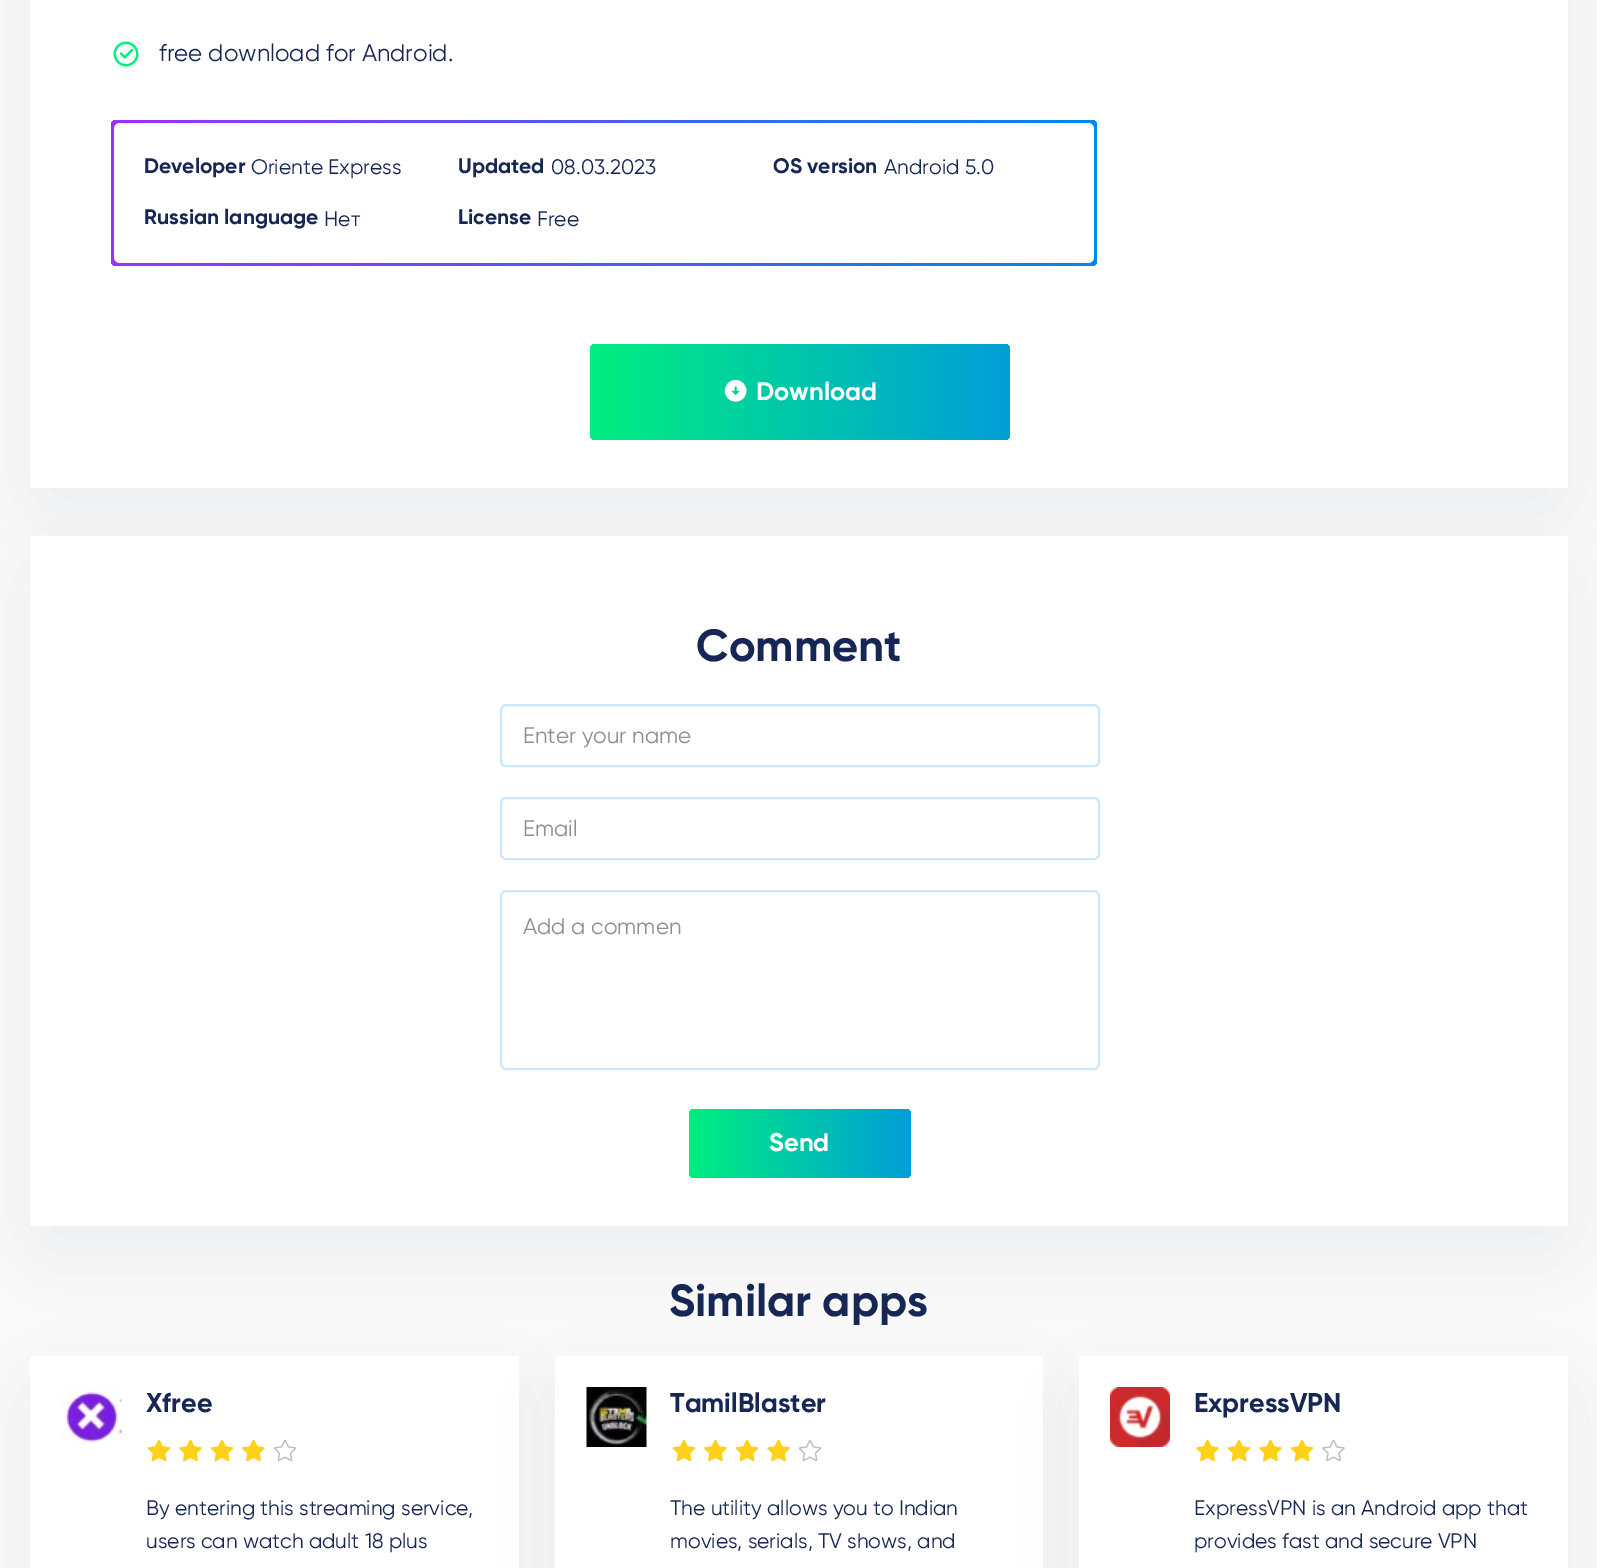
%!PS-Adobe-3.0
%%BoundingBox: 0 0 1597 1568
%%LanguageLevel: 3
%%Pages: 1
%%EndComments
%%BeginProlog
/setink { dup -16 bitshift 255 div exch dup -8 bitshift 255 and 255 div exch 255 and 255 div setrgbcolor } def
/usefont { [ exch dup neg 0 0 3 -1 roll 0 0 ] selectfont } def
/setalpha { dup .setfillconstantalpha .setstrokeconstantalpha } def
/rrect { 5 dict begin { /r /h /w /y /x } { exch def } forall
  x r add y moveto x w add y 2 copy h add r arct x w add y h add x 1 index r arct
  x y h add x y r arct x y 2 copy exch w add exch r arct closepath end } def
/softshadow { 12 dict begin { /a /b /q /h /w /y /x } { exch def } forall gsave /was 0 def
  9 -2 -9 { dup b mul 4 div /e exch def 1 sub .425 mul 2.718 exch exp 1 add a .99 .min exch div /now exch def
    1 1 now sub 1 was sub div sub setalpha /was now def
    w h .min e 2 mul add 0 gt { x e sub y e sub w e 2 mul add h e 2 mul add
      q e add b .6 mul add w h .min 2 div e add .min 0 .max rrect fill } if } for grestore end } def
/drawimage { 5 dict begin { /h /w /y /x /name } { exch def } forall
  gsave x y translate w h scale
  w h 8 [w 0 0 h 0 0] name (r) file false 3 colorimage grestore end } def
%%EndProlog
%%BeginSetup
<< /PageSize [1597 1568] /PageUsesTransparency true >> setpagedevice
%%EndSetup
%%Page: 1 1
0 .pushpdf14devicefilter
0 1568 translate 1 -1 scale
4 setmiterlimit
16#F9F9F9 setink
0 0 1597 1568 rectfill
16#192A59 setink
53 -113 1492 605 0 37.5 0.08 softshadow
16#FFFFFF setink
30 0 1538 488 rectfill
(img1.raw) 113 41 26 26 drawimage
/Gilroy-Regular 24 usefont
16#172755 setink
159 61 moveto (free download for Android.) show
gsave 111 120 986 146 6 rrect clip newpath
<< /ShadingType 2 /ColorSpace /DeviceRGB /Coords [94 222 1099 164] /Extend [true true] /Function << /FunctionType 2 /Domain [0 1] /C0 [0.624 0.184 1] /C1 [0 0.533 0.941] /N 1 >> >> shfill grestore
16#FFFFFF setink
114 123 980 140 6 rrect fill
/Gilroy-Bold 21 usefont
16#172755 setink
144 173 moveto (Developer) show
/Gilroy-Regular 21 usefont
251 174 moveto (Oriente Express) show
/Gilroy-Bold 21 usefont
458 173 moveto (Updated) show
/Gilroy-Regular 21 usefont
551 174 moveto (08.03.2023) show
/Gilroy-Bold 21 usefont
773 173 moveto (OS version) show
/Gilroy-Regular 21 usefont
884 174 moveto (Android 5.0) show
/Gilroy-Bold 21 usefont
144 224 moveto (Russian language) show
/Gilroy-Regular 21 usefont
324 226 moveto (Нет) show
/Gilroy-Bold 21 usefont
458 224 moveto (License) show
/Gilroy-Regular 21 usefont
537 226 moveto (Free) show
gsave 590 344 420 96 6 rrect clip newpath
<< /ShadingType 2 /ColorSpace /DeviceRGB /Coords [579 392 1123 392] /Extend [true true] /Function << /FunctionType 2 /Domain [0 1] /C0 [0 0.941 0.49] /C1 [0 0.533 0.941] /N 1 >> >> shfill grestore
(img2.raw) 724 380 23 22 drawimage
/Gilroy-Bold 25.5 usefont
16#FFFFFF setink
756 400 moveto (Download) show
16#192A59 setink
53 585 1492 645 0 37.5 0.08 softshadow
16#FFFFFF setink
30 536 1538 690 rectfill
/Gilroy-Bold 45 usefont
16#172755 setink
696 661 moveto (Comment) show
16#CCE7FC setink
2 setlinewidth
501 705 598 61 5 rrect stroke
/Gilroy-Regular 22.5 usefont
16#8E8E8E setink
523 743 moveto (Enter your name) show
16#CCE7FC setink
501 798 598 61 5 rrect stroke
16#8E8E8E setink
523 836 moveto (Email) show
16#CCE7FC setink
501 891 598 178 5 rrect stroke
16#8E8E8E setink
523 934 moveto (Add a commen) show
gsave 689 1109 222 69 6 rrect clip newpath
<< /ShadingType 2 /ColorSpace /DeviceRGB /Coords [683 1143 971 1143] /Extend [true true] /Function << /FunctionType 2 /Domain [0 1] /C0 [0 0.941 0.49] /C1 [0 0.533 0.941] /N 1 >> >> shfill grestore
/Gilroy-Bold 25.5 usefont
16#FFFFFF setink
769 1151 moveto (Send) show
/Gilroy-Bold 45 usefont
16#172755 setink
669 1316 moveto (Similar apps) show
16#192A59 setink
53 1406 444 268 0 37.5 0.08 softshadow
16#FFFFFF setink
30 1356 489 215 3 rrect fill
(img3.raw) 61 1387 61 57 drawimage
/Gilroy-Bold 27 usefont
16#172755 setink
146 1412 moveto (Xfree) show
(img4.raw) 147 1439 24 23 drawimage
(img5.raw) 179 1439 23 23 drawimage
(img4.raw) 210 1439 24 23 drawimage
(img5.raw) 242 1439 23 23 drawimage
(img6.raw) 273 1439 24 23 drawimage
/Gilroy-Regular 21 usefont
146 1515 moveto (By entering this streaming service,) show
146 1548 moveto (users can watch adult 18 plus) show
16#192A59 setink
578 1406 442 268 0 37.5 0.08 softshadow
16#FFFFFF setink
555 1356 488 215 3 rrect fill
(img7.raw) 586 1387 61 60 drawimage
/Gilroy-Bold 27 usefont
16#172755 setink
670 1412 moveto (TamilBlaster) show
(img4.raw) 672 1439 24 23 drawimage
(img5.raw) 704 1439 23 23 drawimage
(img4.raw) 735 1439 24 23 drawimage
(img5.raw) 767 1439 23 23 drawimage
(img6.raw) 798 1439 24 23 drawimage
/Gilroy-Regular 21 usefont
670 1515 moveto (The utility allows you to Indian) show
670 1548 moveto (movies, serials, TV shows, and) show
16#192A59 setink
1101 1406 444 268 0 37.5 0.08 softshadow
16#FFFFFF setink
1079 1356 489 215 3 rrect fill
(img8.raw) 1110 1387 60 60 drawimage
/Gilroy-Bold 27 usefont
16#172755 setink
1194 1412 moveto (ExpressVPN) show
(img5.raw) 1196 1439 23 23 drawimage
(img4.raw) 1227 1439 24 23 drawimage
(img5.raw) 1259 1439 23 23 drawimage
(img4.raw) 1290 1439 24 23 drawimage
(img9.raw) 1322 1439 23 23 drawimage
/Gilroy-Regular 21 usefont
1194 1515 moveto (ExpressVPN is an Android app that) show
1194 1548 moveto (provides fast and secure VPN) show
.poppdf14devicefilter showpage
%%EOF
